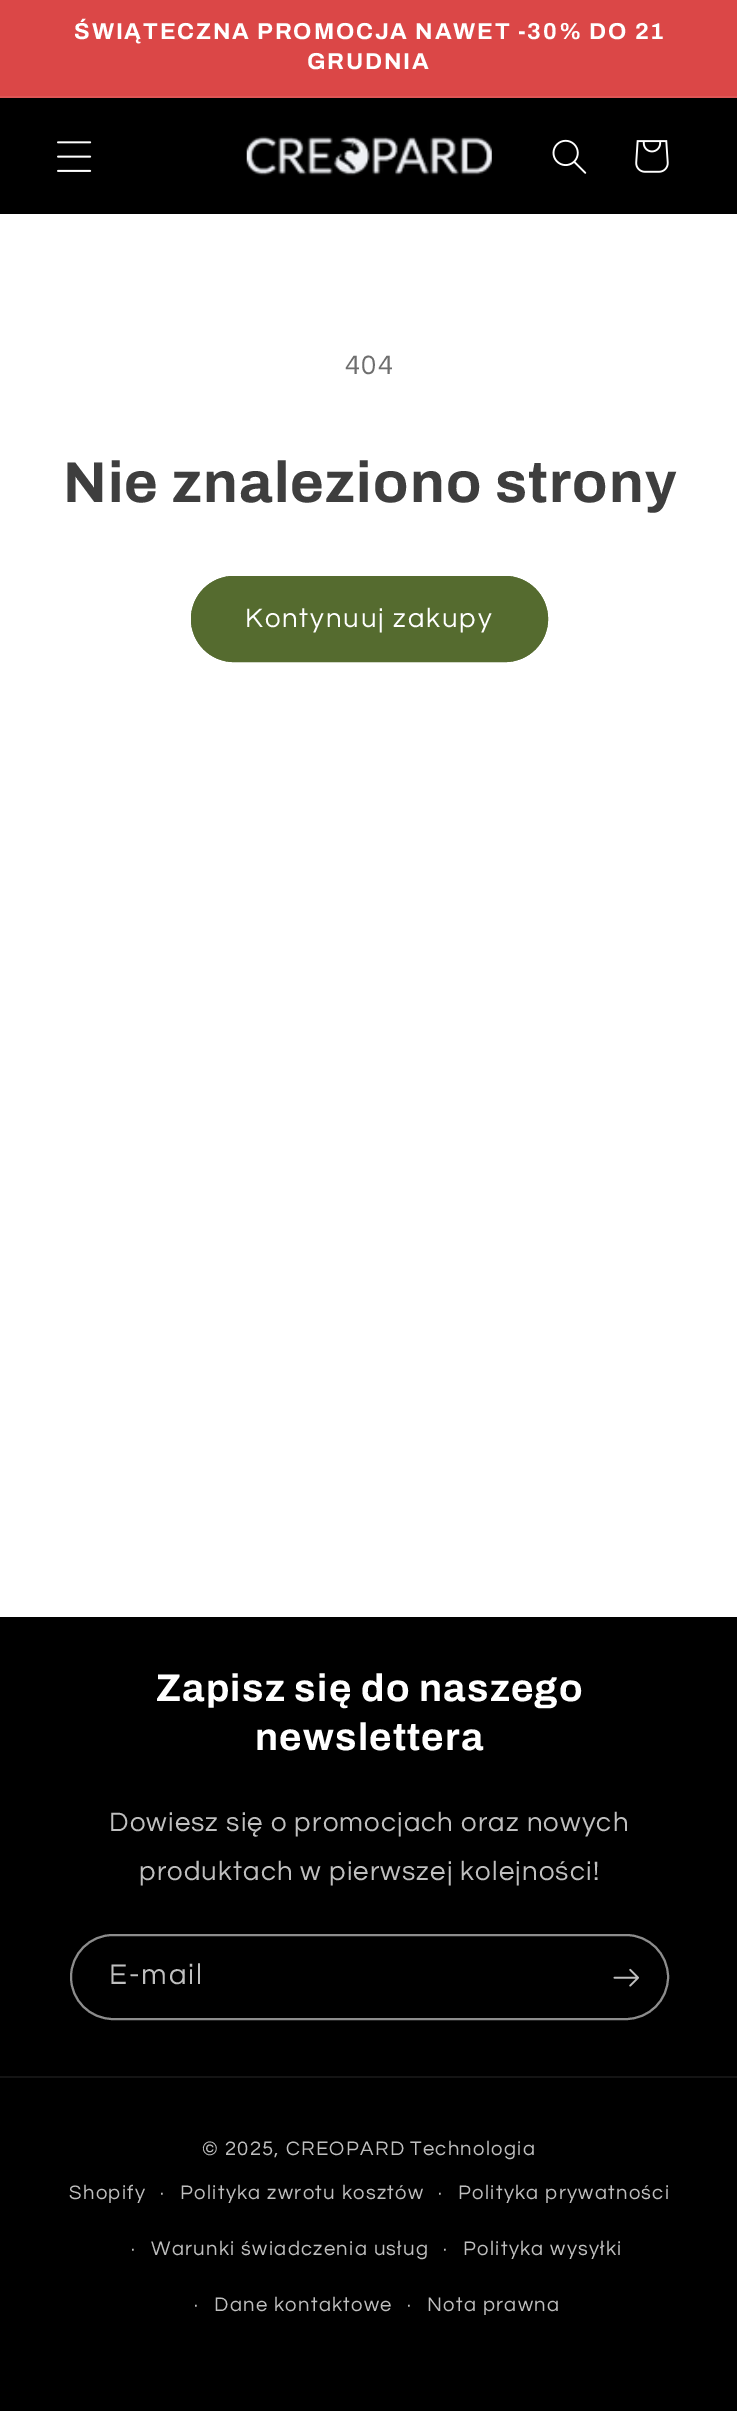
%!PS-Adobe-3.0
%%BoundingBox: 0 0 737 2411
%%LanguageLevel: 3
%%Pages: 1
%%EndComments
%%BeginProlog
/setink { dup -16 bitshift 255 div exch dup -8 bitshift 255 and 255 div exch 255 and 255 div setrgbcolor } def
/usefont { [ exch dup neg 0 0 3 -1 roll 0 0 ] selectfont } def
/rrect { 5 dict begin { /r /h /w /y /x } { exch def } forall
  x r add y moveto x w add y 2 copy h add r arct x w add y h add x 1 index r arct
  x y h add x y r arct x y 2 copy exch w add exch r arct closepath end } def
/drawimage { 5 dict begin { /h /w /y /x /name } { exch def } forall
  gsave x y translate w h scale
  w h 8 [w 0 0 h 0 0] name (r) file false 3 colorimage grestore end } def
%%EndProlog
%%BeginSetup
<< /PageSize [737 2411] >> setpagedevice
%%EndSetup
%%Page: 1 1
0 2411 translate 1 -1 scale
4 setmiterlimit
16#FFFFFF setink
0 0 737 2411 rectfill
16#DB4747 setink
0 0 737 96 rectfill
16#DE5656 setink
0 96 737 2 rectfill
/Archivo-Bold 23.1 usefont
16#FFFFFF setink
74 39 moveto 1.85 0 (ŚWIĄTECZNA PROMOCJA NAWET -30% DO 21) ashow
307 69 moveto 1.85 0 (GRUDNIA) ashow
16#000000 setink
0 98 737 116 rectfill
(img1.raw) 57 141 35 31 drawimage
(img2.raw) 246 136 246 40 drawimage
(img3.raw) 552 139 35 35 drawimage
(img4.raw) 635 140 34 33 drawimage
/Questrial-Regular 27.6 usefont
16#6E6E6E setink
345 374 moveto 1.1 0 (404) ashow
/Archivo-Bold 57.75 usefont
16#3E3E3E setink
63 502 moveto 1.2 0 (Nie znaleziono strony) ashow
16#556B2F setink
191 576 357 86 43 rrect fill
2 setlinewidth
192 577 355 84 42 rrect stroke
/Questrial-Regular 27.6 usefont
16#FFFFFF setink
245 627 moveto 1.85 0 (Kontynuuj zakupy) ashow
16#000000 setink
0 1617 737 794 rectfill
/Archivo-Bold 38.5 usefont
16#FFFFFF setink
156 1701 moveto 1.2 0 (Zapisz się do naszego) ashow
255 1750 moveto 1.2 0 (newslettera) ashow
/Questrial-Regular 27.6 usefont
16#BFBFBF setink
109 1831 moveto 1.1 0 (Dowiesz się o promocjach oraz nowych) ashow
139 1880 moveto 1.1 0 (produktach w pierwszej kolejności!) ashow
16#8C8C8C setink
71 1935 597 84 42 rrect stroke
/Questrial-Regular 29.5 usefont
16#BFBFBF setink
109 1984 moveto 1.85 0 (E-mail) ashow
(img5.raw) 613 1968 26 19 drawimage
16#141414 setink
0 2076 737 2 rectfill
/Questrial-Regular 20.25 usefont
16#BFBFBF setink
202 2155 moveto 1.3 0 (© 2025, CREOPARD) ashow
410 2155 moveto 1.3 0 (Technologia) ashow
69 2199 moveto 1.3 0 (Shopify) ashow
/Questrial-Regular 18 usefont
160 2199 moveto 1.3 0 (·) ashow
/Questrial-Regular 20.25 usefont
180 2199 moveto 1.3 0 (Polityka zwrotu kosztów) ashow
/Questrial-Regular 18 usefont
438 2199 moveto 1.3 0 (·) ashow
/Questrial-Regular 20.25 usefont
458 2199 moveto 1.3 0 (Polityka prywatności) ashow
/Questrial-Regular 18 usefont
131 2255 moveto 1.3 0 (·) ashow
/Questrial-Regular 20.25 usefont
151 2255 moveto 1.3 0 (Warunki świadczenia usług) ashow
/Questrial-Regular 18 usefont
443 2255 moveto 1.3 0 (·) ashow
/Questrial-Regular 20.25 usefont
463 2255 moveto 1.3 0 (Polityka wysyłki) ashow
/Questrial-Regular 18 usefont
194 2311 moveto 1.3 0 (·) ashow
/Questrial-Regular 20.25 usefont
214 2311 moveto 1.3 0 (Dane kontaktowe) ashow
/Questrial-Regular 18 usefont
407 2311 moveto 1.3 0 (·) ashow
/Questrial-Regular 20.25 usefont
427 2311 moveto 1.3 0 (Nota prawna) ashow
showpage
%%EOF
